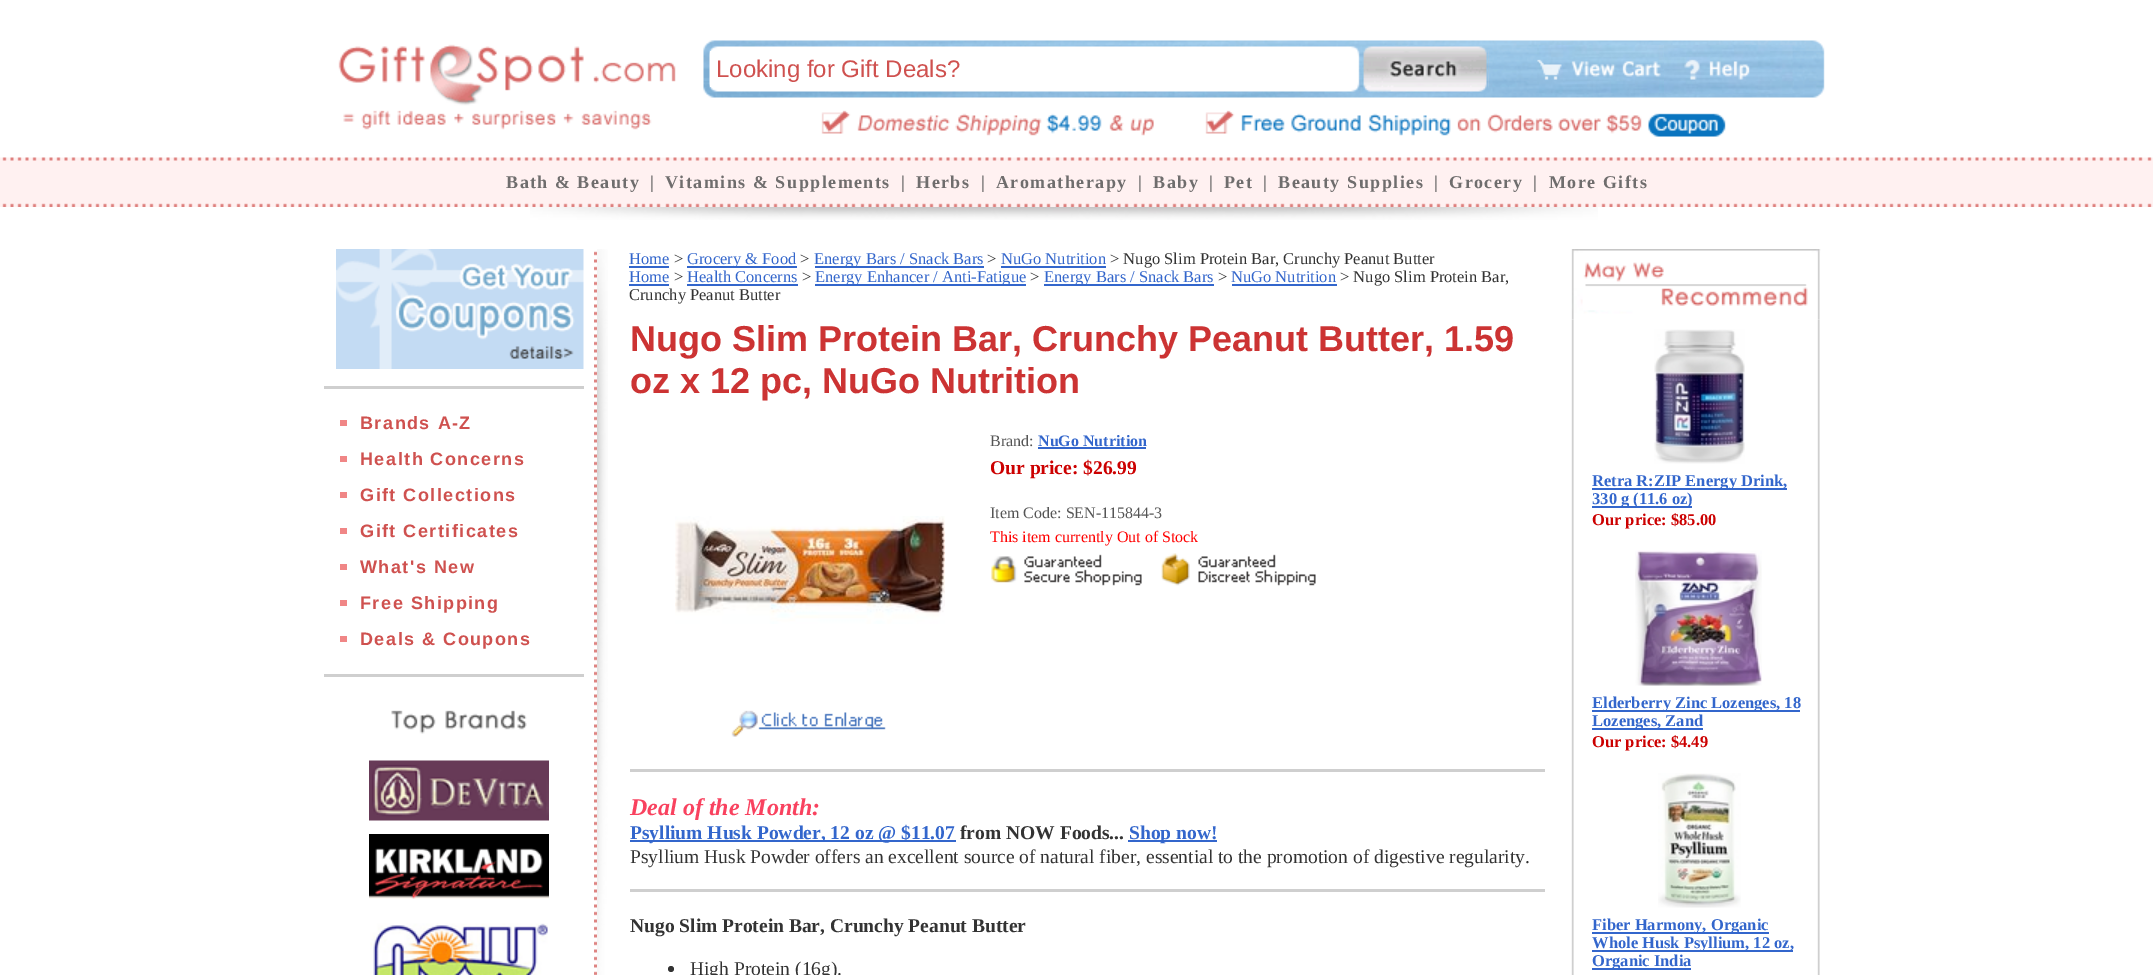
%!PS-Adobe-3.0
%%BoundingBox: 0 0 2153 975
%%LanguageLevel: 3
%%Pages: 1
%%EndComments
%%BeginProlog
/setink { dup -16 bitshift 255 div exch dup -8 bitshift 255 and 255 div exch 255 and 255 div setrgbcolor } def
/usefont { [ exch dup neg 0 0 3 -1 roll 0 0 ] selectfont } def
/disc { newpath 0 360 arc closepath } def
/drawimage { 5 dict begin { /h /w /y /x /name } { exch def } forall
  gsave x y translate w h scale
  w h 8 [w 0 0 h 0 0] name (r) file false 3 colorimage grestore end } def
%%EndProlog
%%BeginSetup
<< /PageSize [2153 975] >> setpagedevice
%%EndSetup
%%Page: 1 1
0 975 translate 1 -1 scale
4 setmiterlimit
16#FFFFFF setink
0 0 2153 975 rectfill
(img1.raw) 338 44 338 86 drawimage
(img2.raw) 703 40 1122 58 drawimage
710 51 2 36 rectfill
/LiberationSans-Regular 24 usefont
16#CF514F setink
716 77 moveto (Looking for Gift Deals?) show
(img3.raw) 1362 46 126 47 drawimage
(img4.raw) 1537 45 126 48 drawimage
(img5.raw) 1664 45 129 49 drawimage
(img6.raw) 821 110 333 26 drawimage
(img7.raw) 1205 110 521 27 drawimage
(img8.raw) 0 157 2153 50 drawimage
/LiberationSerif-Bold 18 usefont
16#6F6D6D setink
506 188 moveto 1.5 0 (Bath & Beauty) ashow
650 188 moveto 1.5 0 (|) ashow
665 188 moveto 1.5 0 (Vitamins & Supplements) ashow
901 188 moveto 1.5 0 (|) ashow
916 188 moveto 1.5 0 (Herbs) ashow
981 188 moveto 1.5 0 (|) ashow
996 188 moveto 1.5 0 (Aromatherapy) ashow
1138 188 moveto 1.5 0 (|) ashow
1153 188 moveto 1.5 0 (Baby) ashow
1209 188 moveto 1.5 0 (|) ashow
1224 188 moveto 1.5 0 (Pet) ashow
1263 188 moveto 1.5 0 (|) ashow
1278 188 moveto 1.5 0 (Beauty Supplies) ashow
1434 188 moveto 1.5 0 (|) ashow
1449 188 moveto 1.5 0 (Grocery) ashow
1533 188 moveto 1.5 0 (|) ashow
1549 188 moveto 1.5 0 (More Gifts) ashow
(img9.raw) 530 207 1068 13 drawimage
(img10.raw) 336 249 248 120 drawimage
16#CFCFCF setink
324 386 260 3 rectfill
/LiberationSans-Bold 18 usefont
16#CF514F setink
360 429 moveto 1.5 0 (Brands A-Z) ashow
16#F08686 setink
340 420 7 6 rectfill
16#CF514F setink
360 465 moveto 1.5 0 (Health Concerns) ashow
16#F08686 setink
340 456 7 6 rectfill
16#CF514F setink
360 501 moveto 1.5 0 (Gift Collections) ashow
16#F08686 setink
340 492 7 6 rectfill
16#CF514F setink
360 537 moveto 1.5 0 (Gift Certificates) ashow
16#F08686 setink
340 528 7 6 rectfill
16#CF514F setink
360 573 moveto 1.5 0 (What's New) ashow
16#F08686 setink
340 564 7 6 rectfill
16#CF514F setink
360 609 moveto 1.5 0 (Free Shipping) ashow
16#F08686 setink
340 600 7 6 rectfill
16#CF514F setink
360 645 moveto 1.5 0 (Deals & Coupons) ashow
16#F08686 setink
340 636 7 6 rectfill
16#CFCFCF setink
324 674 260 3 rectfill
(img11.raw) 391 710 136 24 drawimage
(img12.raw) 369 760 180 61 drawimage
(img13.raw) 369 834 180 65 drawimage
(img14.raw) 370 923 178 52 drawimage
(img15.raw) 594 251 3 724 drawimage
(img16.raw) 597 249 11 726 drawimage
/LiberationSerif-Regular 16.5 usefont
16#3366CC setink
629 264 moveto (Home) show
629 266 40 2 rectfill
16#333333 setink
674 264 moveto (>) show
16#3366CC setink
687 266 110 2 rectfill
687 264 moveto (Grocery & Food) show
16#333333 setink
800 264 moveto (>) show
16#3366CC setink
815 266 169 2 rectfill
814 264 moveto (Energy Bars / Snack Bars) show
16#333333 setink
987 264 moveto (>) show
16#3366CC setink
1001 264 moveto (NuGo Nutrition) show
1001 266 105 2 rectfill
16#333333 setink
1110 264 moveto (> Nugo Slim Protein Bar, Crunchy Peanut Butter) show
16#3366CC setink
629 282 moveto (Home) show
629 284 40 2 rectfill
16#333333 setink
674 282 moveto (>) show
16#3366CC setink
687 282 moveto (Health Concerns) show
687 284 111 2 rectfill
16#333333 setink
802 282 moveto (>) show
16#3366CC setink
815 284 211 2 rectfill
815 282 moveto (Energy Enhancer / Anti-Fatigue) show
16#333333 setink
1030 282 moveto (>) show
16#3366CC setink
1044 284 170 2 rectfill
1044 282 moveto (Energy Bars / Snack Bars) show
16#333333 setink
1218 282 moveto (>) show
16#3366CC setink
1231 282 moveto (NuGo Nutrition) show
1232 284 105 2 rectfill
16#333333 setink
1340 282 moveto (> Nugo Slim Protein Bar,) show
629 300 moveto (Crunchy Peanut Butter) show
/LiberationSans-Bold 36 usefont
16#CC3333 setink
630 351 moveto (Nugo Slim Protein Bar, Crunchy Peanut Butter, 1.59) show
630 393 moveto (oz x 12 pc, NuGo Nutrition) show
/LiberationSerif-Regular 16 usefont
16#555555 setink
990 446 moveto (Brand:) show
/LiberationSerif-Bold 16 usefont
16#3366CC setink
1038 446 moveto (NuGo Nutrition) show
1038 447 108 2 rectfill
/LiberationSerif-Bold 19.5 usefont
16#CC0000 setink
990 474 moveto (Our price: $26.99) show
/LiberationSerif-Regular 16 usefont
16#555555 setink
990 518 moveto (Item Code: SEN-115844-3) show
16#FF0000 setink
990 542 moveto (This item currently Out of Stock) show
(img17.raw) 991 554 151 32 drawimage
(img18.raw) 1161 553 155 33 drawimage
(img19.raw) 675 516 270 108 drawimage
(img20.raw) 731 710 155 27 drawimage
16#CFCFCF setink
630 769 915 3 rectfill
/LiberationSerif-BoldItalic 24 usefont
16#F9425F setink
630 815 moveto (Deal of the Month:) show
16#3366CC setink
630 840 326 2 rectfill
/LiberationSerif-Bold 19.5 usefont
630 839 moveto (Psyllium Husk Powder, 12 oz @ $11.07) show
16#333333 setink
960 839 moveto (from NOW Foods...) show
16#3366CC setink
1128 840 89 2 rectfill
1129 839 moveto (Shop now!) show
/LiberationSerif-Regular 19.5 usefont
16#333333 setink
630 863 moveto (Psyllium Husk Powder offers an excellent source of natural fiber, essential to the promotion of digestive regularity.) show
16#CFCFCF setink
630 889 915 3 rectfill
/LiberationSerif-Bold 19.5 usefont
16#333333 setink
630 932 moveto (Nugo Slim Protein Bar, Crunchy Peanut Butter) show
671 969 3 disc fill
/LiberationSerif-Regular 19.5 usefont
690 975 moveto (High Protein \(16g\).) show
(img22.raw) 1571 319 249 656 drawimage
(img21.raw) 1571 249 250 71 drawimage
(img23.raw) 1654 329 91 135 drawimage
16#3366CC setink
1592 488 195 2 rectfill
/LiberationSerif-Bold 16.5 usefont
1592 486 moveto (Retra R:ZIP Energy Drink,) show
1592 506 100 2 rectfill
1592 504 moveto (330 g \(11.6 oz\)) show
16#CC0000 setink
1592 525 moveto (Our price: $85.00) show
(img24.raw) 1635 550 127 136 drawimage
16#3366CC setink
1592 710 208 2 rectfill
1592 708 moveto (Elderberry Zinc Lozenges, 18) show
1592 728 111 2 rectfill
1592 726 moveto (Lozenges, Zand) show
16#CC0000 setink
1592 747 moveto (Our price: $4.49) show
(img25.raw) 1658 773 83 135 drawimage
16#3366CC setink
1592 932 177 2 rectfill
1592 930 moveto (Fiber Harmony, Organic) show
1592 950 201 2 rectfill
1592 948 moveto (Whole Husk Psyllium, 12 oz,) show
1592 968 99 2 rectfill
1592 966 moveto (Organic India) show
showpage
%%EOF
